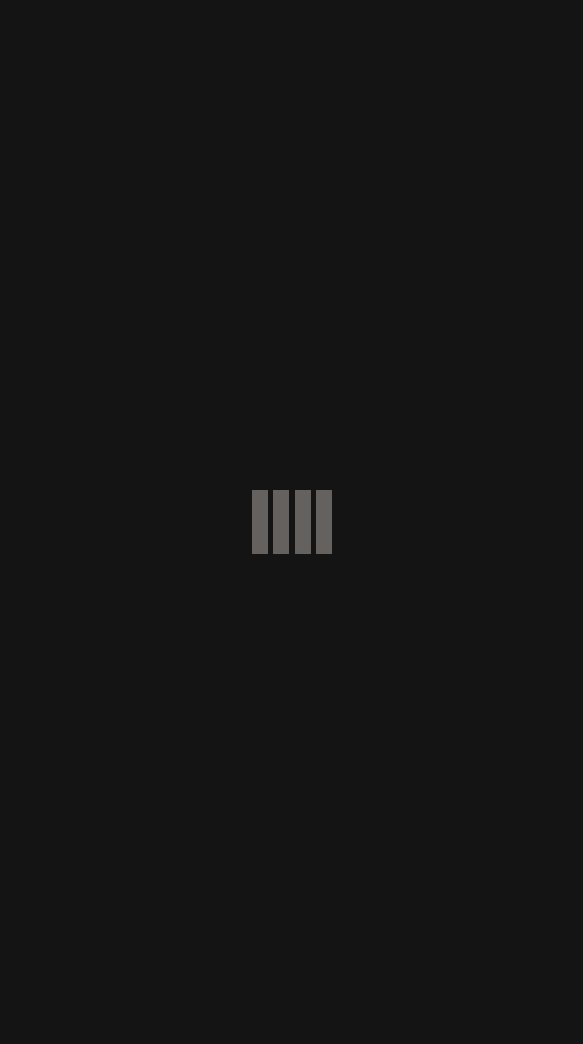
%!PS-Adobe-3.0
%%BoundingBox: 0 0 583 1044
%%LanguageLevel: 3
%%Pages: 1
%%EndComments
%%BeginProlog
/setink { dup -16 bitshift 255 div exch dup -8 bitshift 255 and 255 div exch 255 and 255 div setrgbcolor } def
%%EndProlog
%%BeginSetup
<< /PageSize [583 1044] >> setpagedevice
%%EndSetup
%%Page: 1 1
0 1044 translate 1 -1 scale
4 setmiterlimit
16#141414 setink
0 0 583 1044 rectfill
[
    [252 490 16 64 16#65615F]
    [273 490 16 64 16#65615F]
    [295 490 16 64 16#65615F]
    [316 490 16 64 16#65615F]
] { aload pop setink rectfill } forall
showpage
%%EOF
